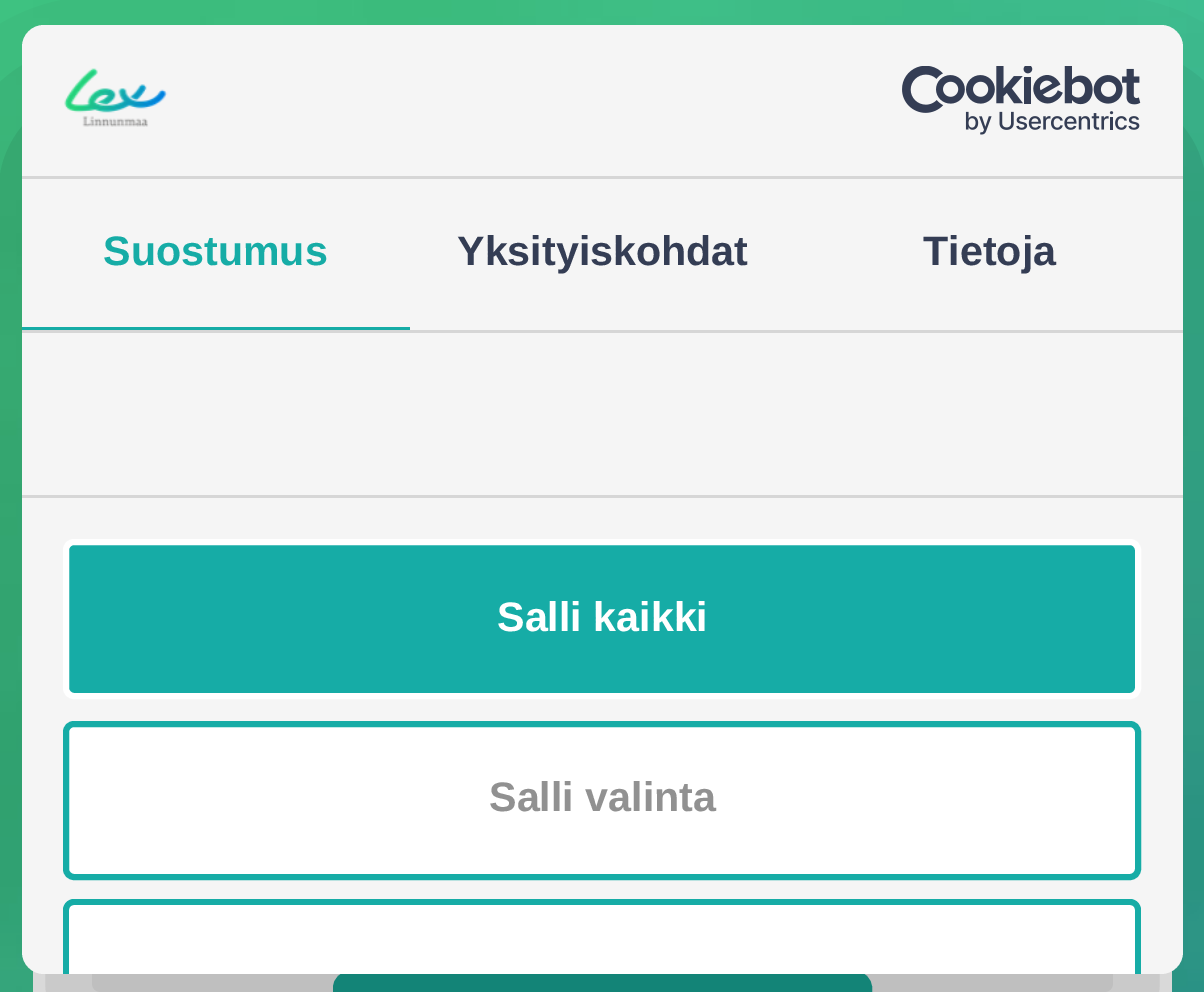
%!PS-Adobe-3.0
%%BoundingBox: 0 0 1204 992
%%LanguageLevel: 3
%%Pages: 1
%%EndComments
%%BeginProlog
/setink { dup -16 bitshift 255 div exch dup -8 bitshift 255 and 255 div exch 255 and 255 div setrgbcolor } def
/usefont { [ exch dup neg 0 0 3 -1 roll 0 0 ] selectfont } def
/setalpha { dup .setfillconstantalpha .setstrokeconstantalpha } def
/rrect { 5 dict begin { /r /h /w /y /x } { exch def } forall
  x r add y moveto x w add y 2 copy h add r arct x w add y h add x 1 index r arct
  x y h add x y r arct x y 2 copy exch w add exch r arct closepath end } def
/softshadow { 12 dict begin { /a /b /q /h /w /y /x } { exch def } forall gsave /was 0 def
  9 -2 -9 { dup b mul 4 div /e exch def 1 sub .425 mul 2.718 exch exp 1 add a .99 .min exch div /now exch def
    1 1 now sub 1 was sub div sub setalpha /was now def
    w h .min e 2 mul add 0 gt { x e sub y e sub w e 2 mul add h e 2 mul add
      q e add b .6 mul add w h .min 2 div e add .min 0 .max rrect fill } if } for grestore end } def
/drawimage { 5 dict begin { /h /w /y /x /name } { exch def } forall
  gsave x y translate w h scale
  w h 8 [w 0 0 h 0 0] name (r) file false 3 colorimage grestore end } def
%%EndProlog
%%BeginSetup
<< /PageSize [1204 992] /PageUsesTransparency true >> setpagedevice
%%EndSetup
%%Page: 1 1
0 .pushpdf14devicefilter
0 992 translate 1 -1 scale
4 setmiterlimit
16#FFFFFF setink
0 0 1204 992 rectfill
(img1.raw) 0 0 1204 992 drawimage
33 971 1139 21 rectfill
16#18B1A0 setink
334.5 972.5 536 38 15.5 rrect gsave fill grestore
3 setlinewidth
stroke
gsave
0 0 moveto 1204 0 lineto 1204 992 lineto 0 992 lineto closepath 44 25 moveto 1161 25 lineto 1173 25 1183 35 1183 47 curveto 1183 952 lineto 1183 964 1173 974 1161 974 curveto 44 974 lineto 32 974 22 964 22 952 curveto 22 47 lineto 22 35 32 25 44 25 curveto closepath eoclip newpath
16#000000 setink
22 113 1161 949 22 93.5 0.3 softshadow
grestore
16#F5F5F5 setink
22 25 1161 949 22 rrect fill
16#D6D6D6 setink
22 176 1161 3 rectfill
(img2.raw) 64 68 104 59 drawimage
(img3.raw) 902 66 239 69 drawimage
22 330 1161 3 rectfill
16#16ACA6 setink
22 327 388 3 rectfill
/LiberationSans-Bold 41.25 usefont
103 265 moveto (Suostumus) show
16#343D54 setink
457 265 moveto (Yksityiskohdat) show
923 265 moveto (Tietoja) show
16#D6D6D6 setink
22 495 1161 3 rectfill
16#16ACA6 setink
66 542 1072 154 8 rrect gsave fill grestore
16#FFFFFF setink
6 setlinewidth
stroke
497 631 moveto (Salli kaikki) show
66 724 1072 153 8 rrect gsave fill grestore
16#16ACA6 setink
stroke
16#919191 setink
489 811 moveto (Salli valinta) show
16#FFFFFF setink
74 899 moveto 1130 899 lineto 1136 899 1141 904 1141 910 curveto 1141 974 lineto 63 974 lineto 63 910 lineto 63 904 68 899 74 899 curveto closepath fill
16#16ACA6 setink
74 899 moveto 68 899 63 904 63 910 curveto 63 974 lineto 69 974 lineto 69 910 lineto 69 907 71 905 74 905 curveto 1130 905 lineto 1133 905 1135 907 1135 910 curveto 1135 974 lineto 1141 974 lineto 1141 910 lineto 1141 904 1136 899 1130 899 curveto closepath fill
.poppdf14devicefilter showpage
%%EOF
